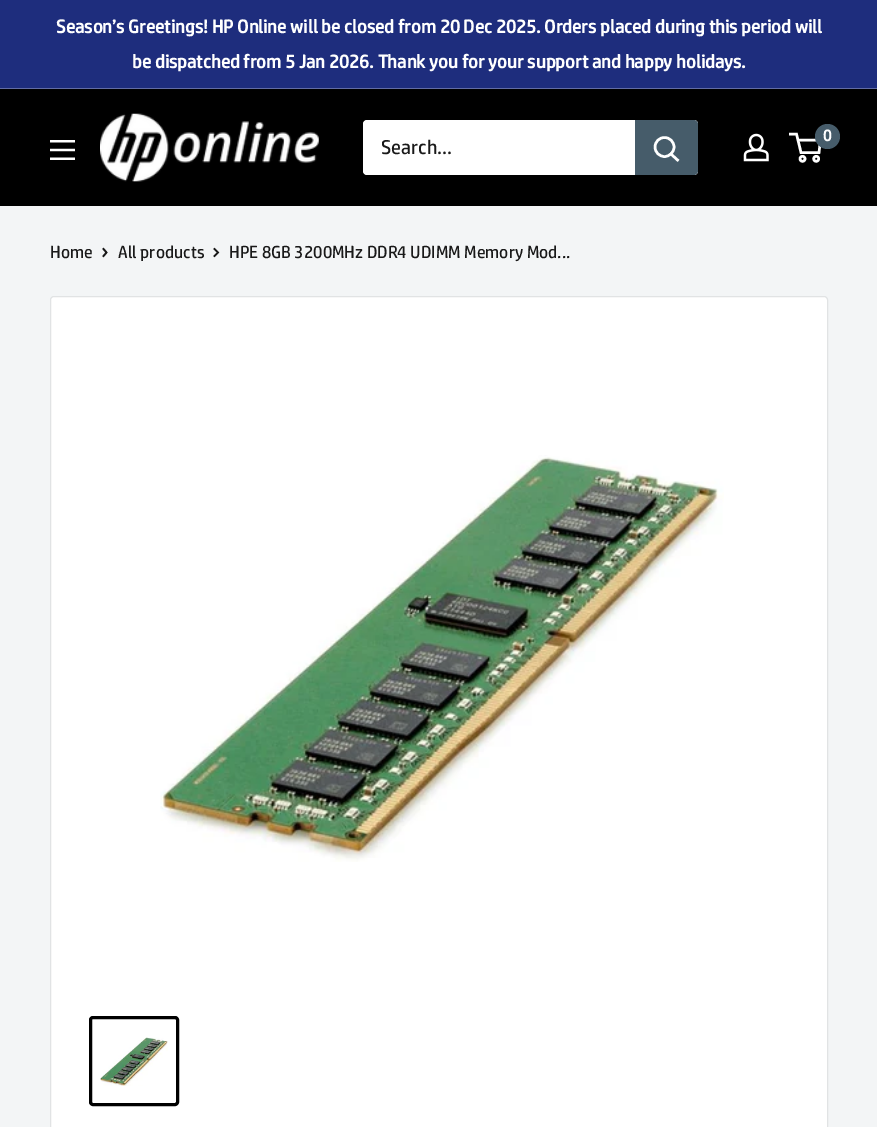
%!PS-Adobe-3.0
%%BoundingBox: 0 0 877 1127
%%LanguageLevel: 3
%%Pages: 1
%%EndComments
%%BeginProlog
/setink { dup -16 bitshift 255 div exch dup -8 bitshift 255 and 255 div exch 255 and 255 div setrgbcolor } def
/usefont { [ exch dup neg 0 0 3 -1 roll 0 0 ] selectfont } def
/disc { newpath 0 360 arc closepath } def
/rrect { 5 dict begin { /r /h /w /y /x } { exch def } forall
  x r add y moveto x w add y 2 copy h add r arct x w add y h add x 1 index r arct
  x y h add x y r arct x y 2 copy exch w add exch r arct closepath end } def
/drawimage { 5 dict begin { /h /w /y /x /name } { exch def } forall
  gsave x y translate w h scale
  w h 8 [w 0 0 h 0 0] name (r) file false 3 colorimage grestore end } def
%%EndProlog
%%BeginSetup
<< /PageSize [877 1127] >> setpagedevice
%%EndSetup
%%Page: 1 1
0 1127 translate 1 -1 scale
4 setmiterlimit
16#F3F5F6 setink
0 0 877 1127 rectfill
16#1E2D7D setink
0 0 877 88 rectfill
16#626CA4 setink
0 88 877 1 rectfill
/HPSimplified-Bold 18.75 usefont
16#FFFFFF setink
56 33 moveto (Season’s Greetings! HP Online will be closed from 20 Dec 2025. Orders placed during this period will) show
132 68 moveto (be dispatched from 5 Jan 2026. Thank you for your support and happy holidays.) show
16#000000 setink
0 89 877 117 rectfill
(img1.raw) 100 113 219 69 drawimage
(img2.raw) 743 133 26 29 drawimage
16#FFFFFF setink
2.5 setlinewidth
802.5 158.8 2.5 disc stroke
816.2 158.8 2.5 disc stroke
798 140 moveto 820.5 140 lineto 819 152.5 lineto 801 152.5 lineto 796.5 134 lineto 789 134 lineto stroke
16#465C6A setink
827.5 136.5 12.5 disc fill
/HPSimplified-Bold 16 usefont
16#FFFFFF setink
823 141 moveto (0) show
(img3.raw) 50 140 25 20 drawimage
363 120 335 55 4 rrect fill
/HPSimplified-Regular 20 usefont
16#191919 setink
381 154 moveto (Search...) show
16#465C6A setink
635 120 moveto 694 120 lineto 696 120 698 122 698 124 curveto 698 171 lineto 698 173 696 175 694 175 curveto 635 175 lineto closepath fill
16#FFFFFF setink
2 setlinecap
677.5 160 moveto 671 154 lineto stroke
0 setlinecap
664.5 147 9.5 disc stroke
/HPSimplified-Regular 17.5 usefont
16#191919 setink
50 258 moveto (Home) show
1.7 setlinewidth
2 setlinecap
103.5 249 moveto 106.5 252.5 lineto 103.5 256 lineto stroke
118 258 moveto (All products) show
214.5 249 moveto 218 252.5 lineto 214.5 256 lineto stroke
229 258 moveto (HPE 8GB 3200MHz DDR4 UDIMM Memory Mod...) show
16#FFFFFF setink
50.5 296.5 777 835 3.5 rrect gsave fill grestore
16#E1E3E4 setink
1 setlinewidth
0 setlinecap
stroke
(img4.raw) 160 455 564 407 drawimage
16#000000 setink
3 setlinewidth
90.5 1017.5 87 87 2.5 rrect stroke
(img5.raw) 100 1037 68 49 drawimage
showpage
%%EOF
